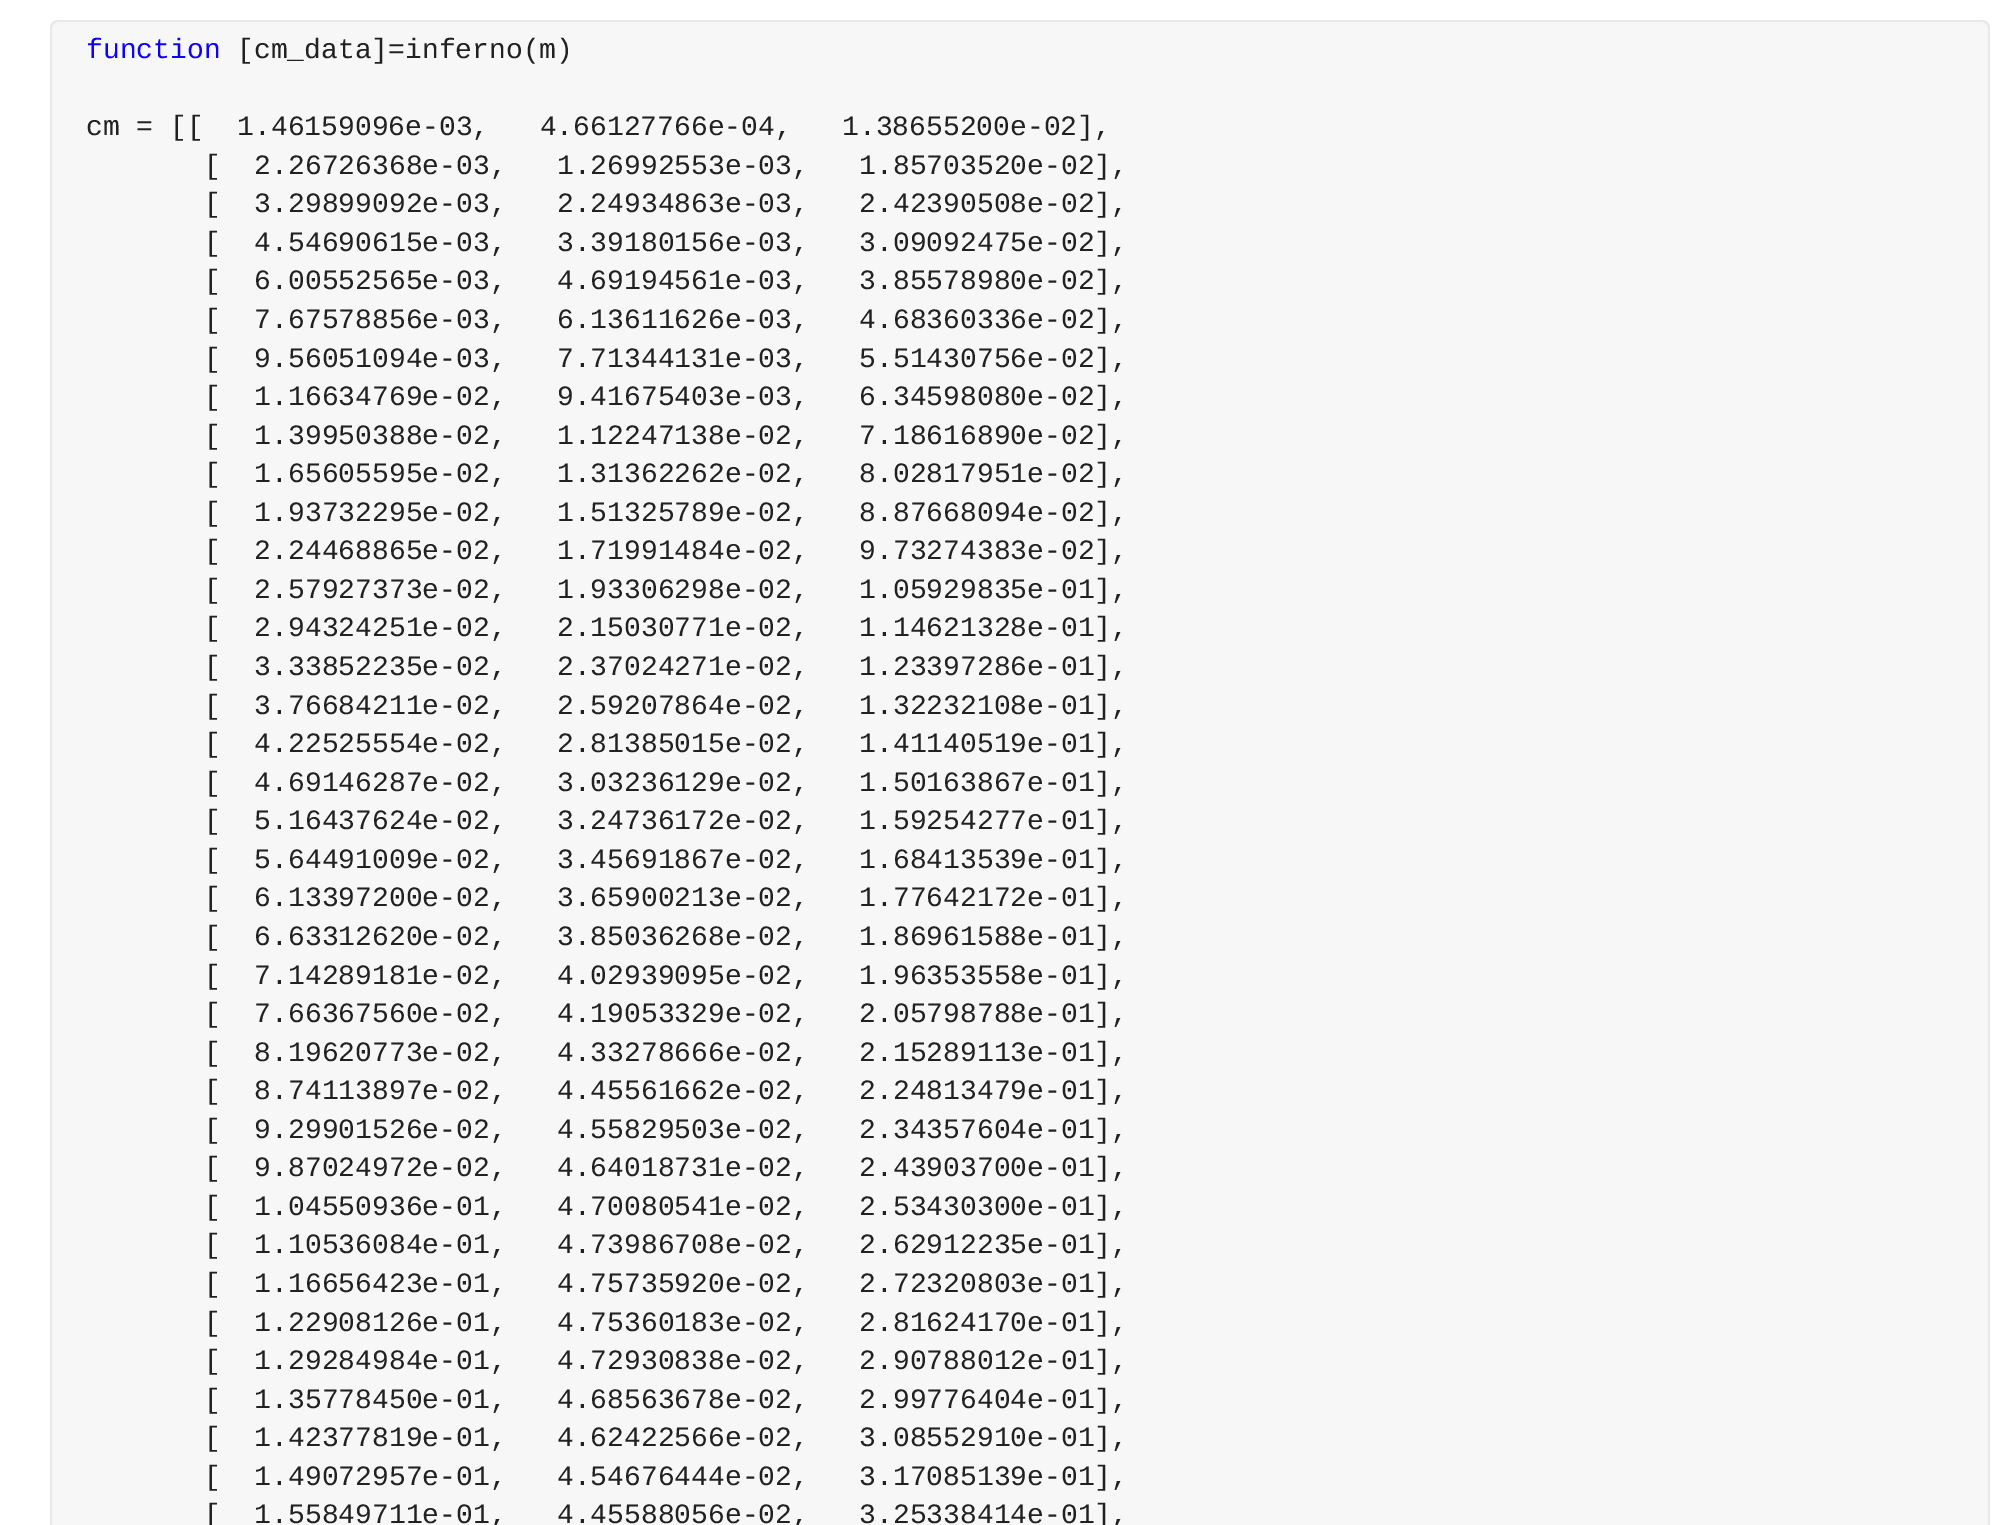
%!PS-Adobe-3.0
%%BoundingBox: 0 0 2015 1525
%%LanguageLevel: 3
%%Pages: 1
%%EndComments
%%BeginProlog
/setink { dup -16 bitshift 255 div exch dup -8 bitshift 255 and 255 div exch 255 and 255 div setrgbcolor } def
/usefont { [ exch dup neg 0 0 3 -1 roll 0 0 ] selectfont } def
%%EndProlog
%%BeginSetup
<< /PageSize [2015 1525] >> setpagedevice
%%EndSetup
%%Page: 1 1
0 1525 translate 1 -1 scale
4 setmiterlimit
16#FFFFFF setink
0 0 2015 1525 rectfill
16#F7F7F7 setink
58 20 moveto 1982 20 lineto 1986.5 20 1990 23.5 1990 28 curveto 1990 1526 lineto 50 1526 lineto 50 28 lineto 50 23.5 53.5 20 58 20 curveto closepath fill
16#E9E9E9 setink
58 20 moveto 1982 20 lineto 1986 20 1990 24 1990 28 curveto 1990 70 lineto 50 70 lineto 50 28 lineto 50 24 54 20 58 20 curveto closepath 58 22 moveto 1982 22 lineto 1985 22 1988 25 1988 28 curveto 1988 70 lineto 52 70 lineto 52 28 lineto 52 25 55 22 58 22 curveto closepath eofill
/LiberationMono-Regular 28 usefont
16#0E00FF setink
86 58 moveto (function) show
16#212121 setink
237 58 moveto ([cm_data]=inferno\(m\)) show
16#E9E9E9 setink
1988 70 2 1455 rectfill
50 70 2 1455 rectfill
16#212121 setink
[
    [(cm = [[  1.46159096e-03,   4.66127766e-04,   1.38655200e-02],) 86 135]
    [([  2.26726368e-03,   1.26992553e-03,   1.85703520e-02],) 204 174]
    [([  3.29899092e-03,   2.24934863e-03,   2.42390508e-02],) 204 212]
    [([  4.54690615e-03,   3.39180156e-03,   3.09092475e-02],) 204 251]
    [([  6.00552565e-03,   4.69194561e-03,   3.85578980e-02],) 204 289]
    [([  7.67578856e-03,   6.13611626e-03,   4.68360336e-02],) 204 328]
    [([  9.56051094e-03,   7.71344131e-03,   5.51430756e-02],) 204 367]
    [([  1.16634769e-02,   9.41675403e-03,   6.34598080e-02],) 204 405]
    [([  1.39950388e-02,   1.12247138e-02,   7.18616890e-02],) 204 444]
    [([  1.65605595e-02,   1.31362262e-02,   8.02817951e-02],) 204 482]
    [([  1.93732295e-02,   1.51325789e-02,   8.87668094e-02],) 204 521]
    [([  2.24468865e-02,   1.71991484e-02,   9.73274383e-02],) 204 559]
    [([  2.57927373e-02,   1.93306298e-02,   1.05929835e-01],) 204 598]
    [([  2.94324251e-02,   2.15030771e-02,   1.14621328e-01],) 204 636]
    [([  3.33852235e-02,   2.37024271e-02,   1.23397286e-01],) 204 675]
    [([  3.76684211e-02,   2.59207864e-02,   1.32232108e-01],) 204 714]
    [([  4.22525554e-02,   2.81385015e-02,   1.41140519e-01],) 204 752]
    [([  4.69146287e-02,   3.03236129e-02,   1.50163867e-01],) 204 791]
    [([  5.16437624e-02,   3.24736172e-02,   1.59254277e-01],) 204 829]
    [([  5.64491009e-02,   3.45691867e-02,   1.68413539e-01],) 204 868]
    [([  6.13397200e-02,   3.65900213e-02,   1.77642172e-01],) 204 906]
    [([  6.63312620e-02,   3.85036268e-02,   1.86961588e-01],) 204 945]
    [([  7.14289181e-02,   4.02939095e-02,   1.96353558e-01],) 204 984]
    [([  7.66367560e-02,   4.19053329e-02,   2.05798788e-01],) 204 1022]
    [([  8.19620773e-02,   4.33278666e-02,   2.15289113e-01],) 204 1061]
    [([  8.74113897e-02,   4.45561662e-02,   2.24813479e-01],) 204 1099]
    [([  9.29901526e-02,   4.55829503e-02,   2.34357604e-01],) 204 1138]
    [([  9.87024972e-02,   4.64018731e-02,   2.43903700e-01],) 204 1176]
    [([  1.04550936e-01,   4.70080541e-02,   2.53430300e-01],) 204 1215]
    [([  1.10536084e-01,   4.73986708e-02,   2.62912235e-01],) 204 1253]
    [([  1.16656423e-01,   4.75735920e-02,   2.72320803e-01],) 204 1292]
    [([  1.22908126e-01,   4.75360183e-02,   2.81624170e-01],) 204 1331]
    [([  1.29284984e-01,   4.72930838e-02,   2.90788012e-01],) 204 1369]
    [([  1.35778450e-01,   4.68563678e-02,   2.99776404e-01],) 204 1408]
    [([  1.42377819e-01,   4.62422566e-02,   3.08552910e-01],) 204 1446]
    [([  1.49072957e-01,   4.54676444e-02,   3.17085139e-01],) 204 1485]
    [([  1.55849711e-01,   4.45588056e-02,   3.25338414e-01],) 204 1523]
] { aload pop moveto show } forall
showpage
%%EOF
